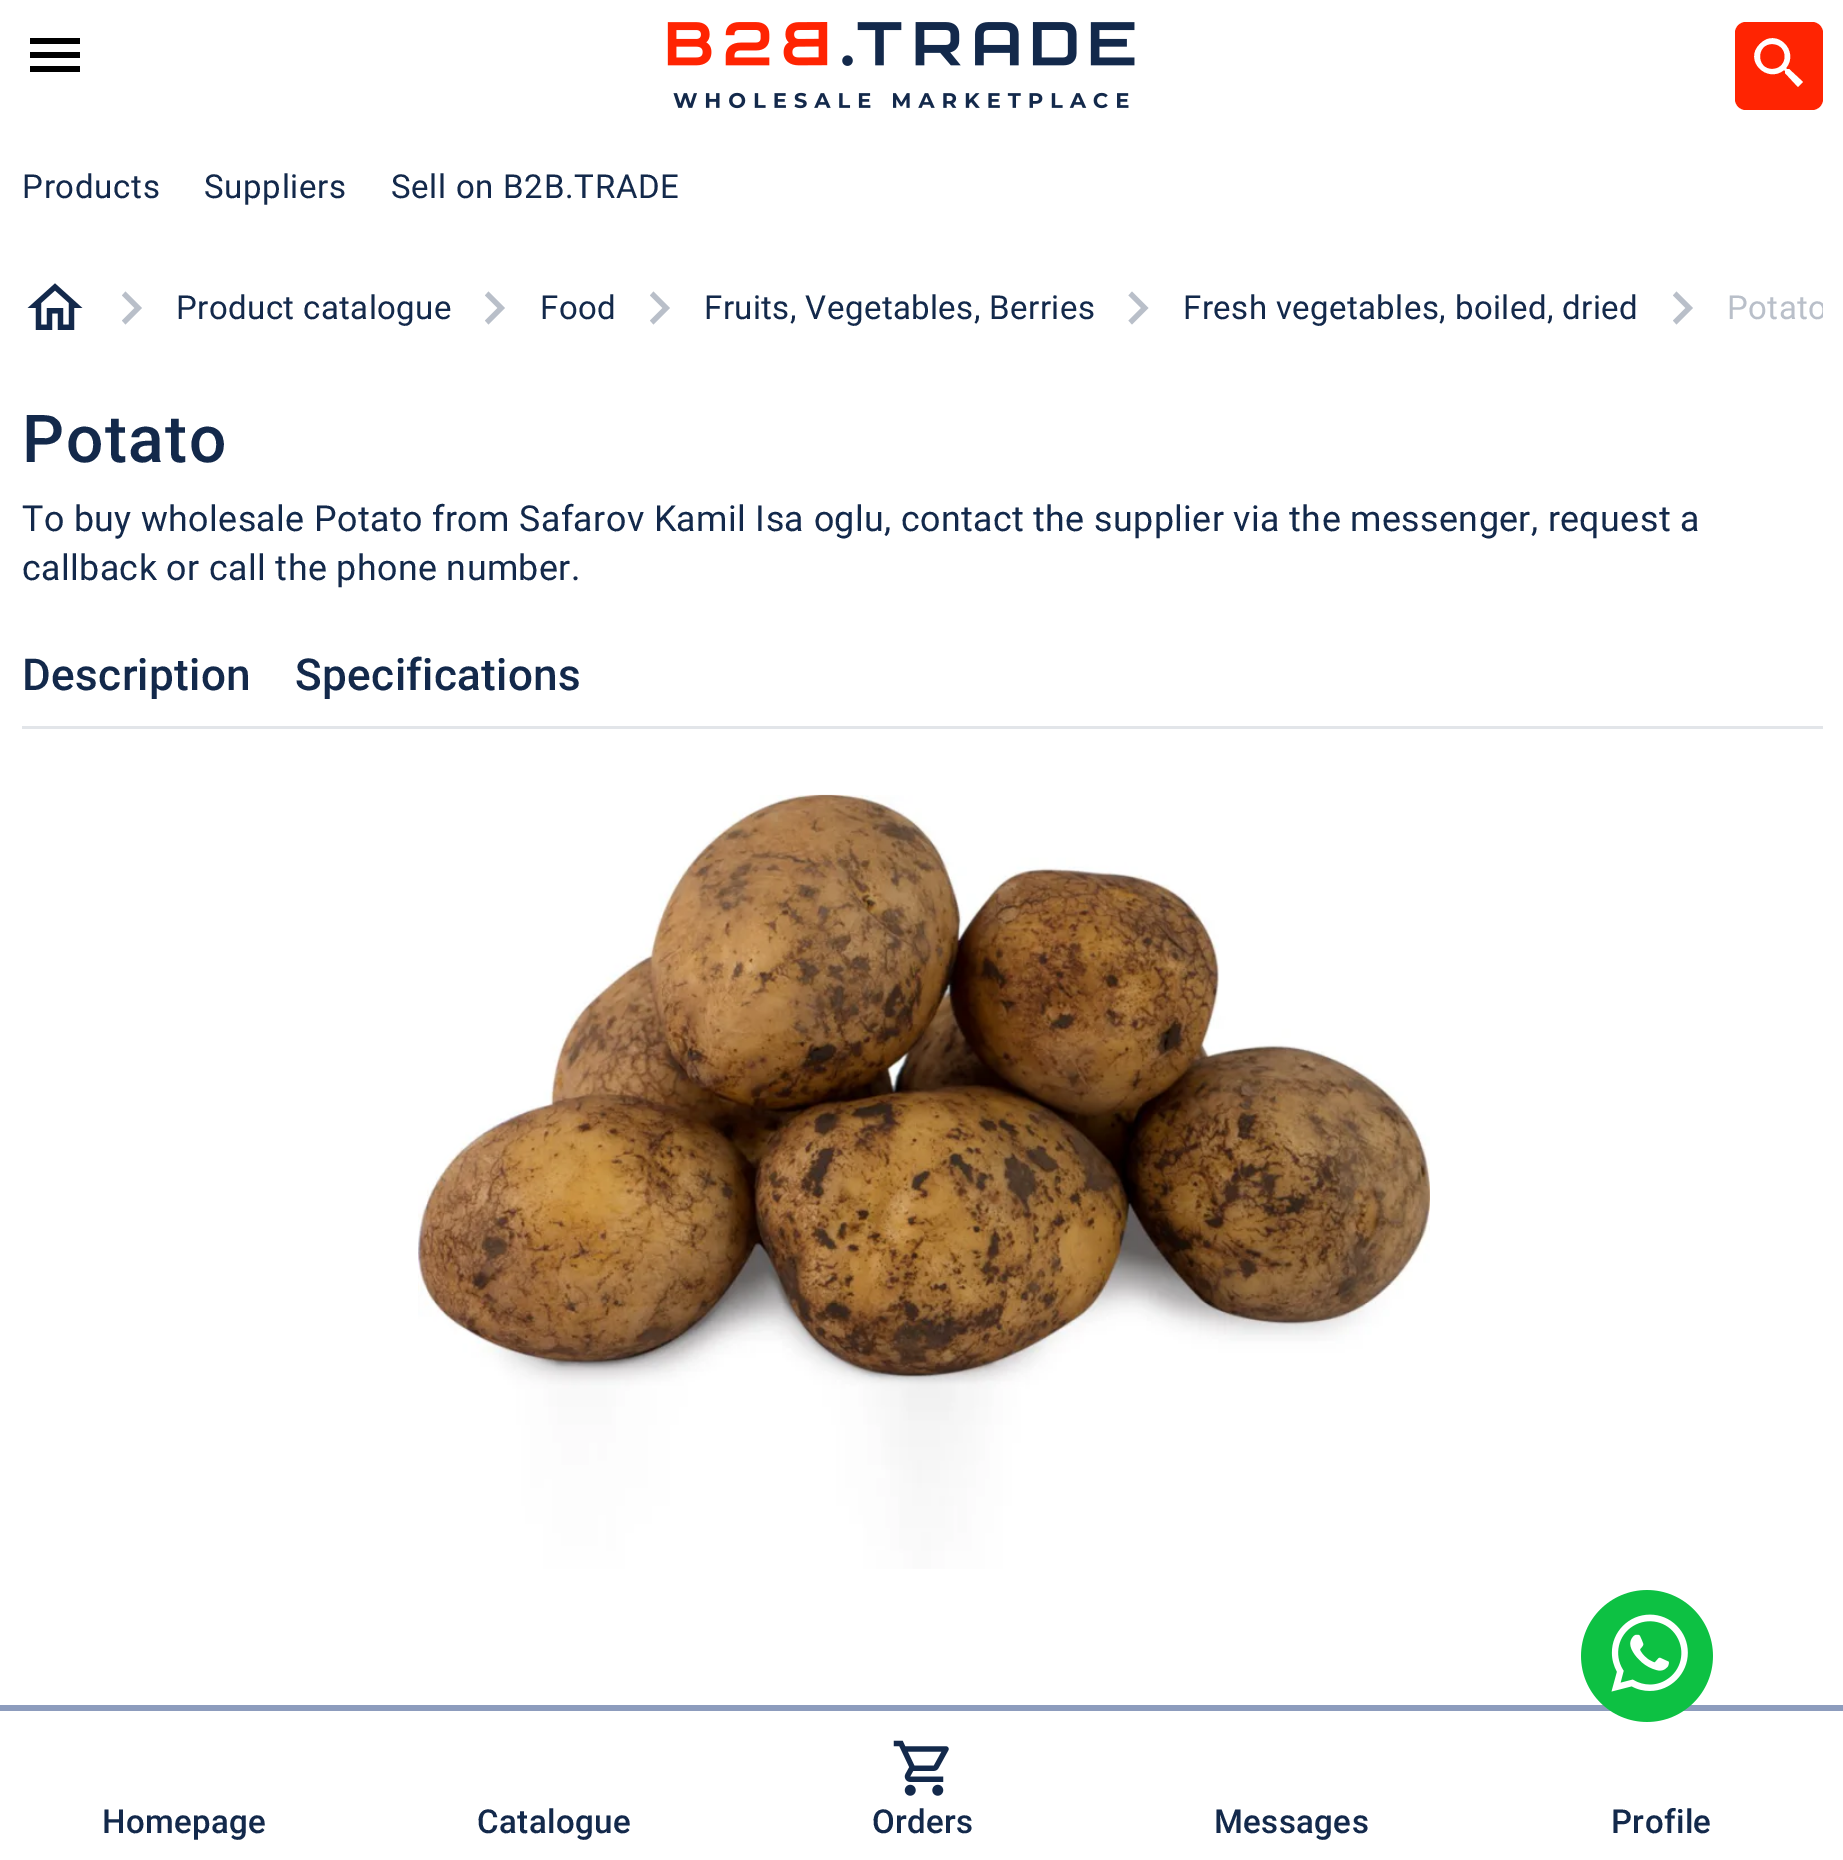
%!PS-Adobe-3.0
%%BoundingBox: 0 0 1843 1860
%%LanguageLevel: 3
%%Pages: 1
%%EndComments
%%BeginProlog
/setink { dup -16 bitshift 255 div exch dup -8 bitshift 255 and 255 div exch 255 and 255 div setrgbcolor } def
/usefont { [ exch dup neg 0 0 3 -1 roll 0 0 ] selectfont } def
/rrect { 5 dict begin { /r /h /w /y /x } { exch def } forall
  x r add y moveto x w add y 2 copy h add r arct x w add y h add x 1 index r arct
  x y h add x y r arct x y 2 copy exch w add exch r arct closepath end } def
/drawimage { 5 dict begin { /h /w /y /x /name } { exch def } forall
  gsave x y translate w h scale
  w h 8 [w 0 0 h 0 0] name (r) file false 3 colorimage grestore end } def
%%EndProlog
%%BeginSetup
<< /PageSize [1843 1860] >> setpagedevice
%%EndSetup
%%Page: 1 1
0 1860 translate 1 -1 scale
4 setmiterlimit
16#FFFFFF setink
0 0 1843 1860 rectfill
16#000000 setink
30 72 moveto 80 72 lineto 80 66 lineto 30 66 lineto closepath 30 58 moveto 80 58 lineto 80 52 lineto 30 52 lineto closepath 30 38 moveto 30 44 lineto 80 44 lineto 80 38 lineto closepath fill
(img1.raw) 667 22 468 87 drawimage
16#FF2402 setink
1735 22 88 88 11 rrect fill
16#FFFFFF setink
1789 69 moveto 1787 69 lineto 1786 68 lineto 1800 51 1776 27 1760 44 curveto 1743 60 1767 84 1784 70 curveto 1785 71 lineto 1785 73 lineto 1798 87 lineto 1803 82 lineto closepath 1772 69 moveto 1756 69 1756 44 1772 44 curveto 1789 44 1789 69 1772 69 curveto closepath fill
/Roboto-Regular 33 usefont
16#13294B setink
22 198 moveto 0.7 0 (Products) ashow
204 198 moveto 0.7 0 (Suppliers) ashow
391 198 moveto 0.7 0 (Sell on B2B.TRADE) ashow
(img2.raw) 27 283 56 47 drawimage
16#B9BFC9 setink
122 320.5 moveto 134.5 308 lineto 122 295.5 lineto 125.5 291.5 lineto 142 308 lineto 125.5 324.5 lineto closepath fill
16#13294B setink
176 319 moveto 0.41 0 (Product catalogue) ashow
16#B9BFC9 setink
485 320.5 moveto 497.5 308 lineto 485 295.5 lineto 488.5 291.5 lineto 505 308 lineto 488.5 324.5 lineto closepath fill
16#13294B setink
540 319 moveto 0.41 0 (Food) ashow
16#B9BFC9 setink
650 320.5 moveto 662.5 308 lineto 650 295.5 lineto 653.5 291.5 lineto 670 308 lineto 653.5 324.5 lineto closepath fill
16#13294B setink
704 319 moveto 0.41 0 (Fruits, Vegetables, Berries) ashow
16#B9BFC9 setink
1128.5 320.5 moveto 1141 308 lineto 1128.5 295.5 lineto 1132 291.5 lineto 1148.5 308 lineto 1132 324.5 lineto closepath fill
16#13294B setink
1183 319 moveto 0.41 0 (Fresh vegetables, boiled, dried) ashow
16#B9BFC9 setink
1673 320.5 moveto 1685.5 308 lineto 1673 295.5 lineto 1676.5 291.5 lineto 1693 308 lineto 1676.5 324.5 lineto closepath fill
gsave
22 275 1801 66 rectclip
1727 319 moveto 0.41 0 (Potato) ashow
grestore
/Roboto-Medium 66 usefont
16#13294B setink
22 462 moveto 1.5 0 (Potato) ashow
/Roboto-Regular 35.75 usefont
22 531 moveto 0.41 0 (To buy wholesale Potato from Safarov Kamil Isa oglu, contact the supplier via the messenger, request a) ashow
22 580 moveto 0.41 0 (callback or call the phone number.) ashow
16#E2E5E9 setink
22 726 1801 3 rectfill
/Roboto-Medium 44 usefont
16#13294B setink
22 690 moveto 0.41 0 (Description) ashow
295 690 moveto 0.41 0 (Specifications) ashow
(img3.raw) 418 794 1012 775 drawimage
16#8D9CBD setink
0 1705 1843 6 rectfill
(img4.raw) 1581 1590 132 132 drawimage
/Roboto-Medium 33 usefont
16#13294B setink
102 1833 moveto 0.41 0 (Homepage) ashow
477 1833 moveto 0.41 0 (Catalogue) ashow
(img5.raw) 893 1740 56 56 drawimage
872 1833 moveto 0.41 0 (Orders) ashow
1214 1833 moveto 0.41 0 (Messages) ashow
1611 1833 moveto 0.41 0 (Profile) ashow
showpage
%%EOF
